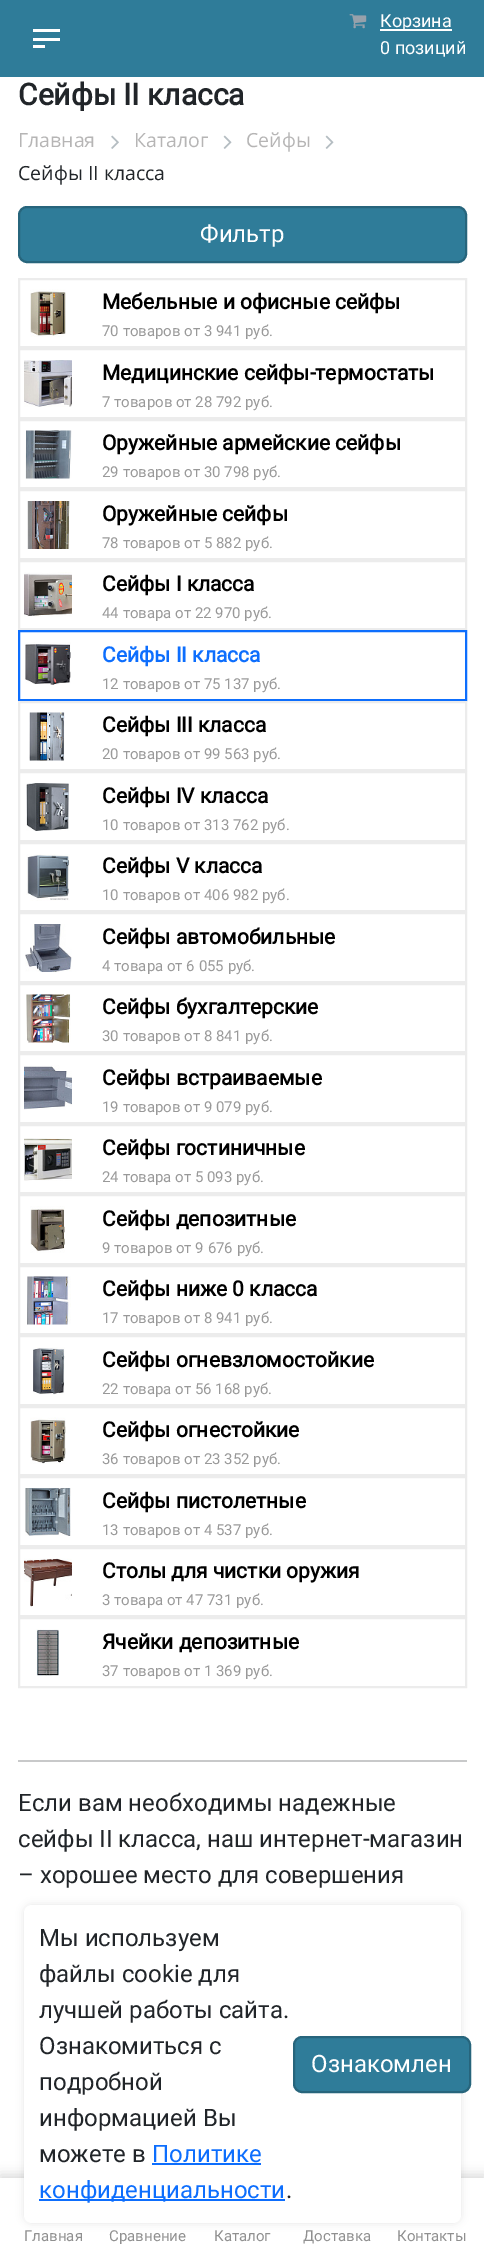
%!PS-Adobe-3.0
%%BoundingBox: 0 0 484 2252
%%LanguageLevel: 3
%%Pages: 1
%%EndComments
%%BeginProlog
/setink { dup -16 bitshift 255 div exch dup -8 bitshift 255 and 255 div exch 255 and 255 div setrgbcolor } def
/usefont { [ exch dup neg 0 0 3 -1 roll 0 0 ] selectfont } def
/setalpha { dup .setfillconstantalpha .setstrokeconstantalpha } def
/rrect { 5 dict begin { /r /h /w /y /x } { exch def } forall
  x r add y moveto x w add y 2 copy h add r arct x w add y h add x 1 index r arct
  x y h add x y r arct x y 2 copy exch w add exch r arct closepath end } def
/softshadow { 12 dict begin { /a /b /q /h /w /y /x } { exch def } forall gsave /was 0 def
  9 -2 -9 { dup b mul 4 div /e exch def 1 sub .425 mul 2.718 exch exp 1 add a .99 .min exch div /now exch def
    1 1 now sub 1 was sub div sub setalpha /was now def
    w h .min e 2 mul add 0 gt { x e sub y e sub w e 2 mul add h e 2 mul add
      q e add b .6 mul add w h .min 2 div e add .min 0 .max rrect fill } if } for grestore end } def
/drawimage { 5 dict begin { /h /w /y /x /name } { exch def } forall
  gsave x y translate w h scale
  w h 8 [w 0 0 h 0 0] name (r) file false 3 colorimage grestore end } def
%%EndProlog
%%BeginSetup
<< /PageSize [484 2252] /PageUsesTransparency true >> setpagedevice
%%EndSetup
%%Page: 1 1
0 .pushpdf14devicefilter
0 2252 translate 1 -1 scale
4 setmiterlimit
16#FFFFFF setink
0 0 484 2252 rectfill
[
    [0 0 484 77 16#2F7C99]
    [33 29 27 3 16#FFFFFF]
    [33 38 27 3 16#FFFFFF]
    [33 45 12 3 16#FFFFFF]
] { aload pop setink rectfill } forall
(img1.raw) 349 14 18 15 drawimage
380 29 72 2 rectfill
/Roboto-Regular 18 usefont
380 27 moveto (Корзина) show
380 54 moveto (0 позиций) show
/Roboto-Bold 30 usefont
16#212529 setink
18 105 moveto (Сейфы II класса) show
/OpenSans-Regular 19.5 usefont
16#B6B5B5 setink
18 147 moveto (Главная) show
(img2.raw) 111 135 8 14 drawimage
134 147 moveto (Каталог) show
(img3.raw) 223 135 9 14 drawimage
246 147 moveto (Сейфы) show
(img3.raw) 325 135 9 14 drawimage
16#212529 setink
18 180 moveto (Сейфы II класса) show
16#2F7C99 setink
19 207 447 55 8 rrect gsave fill grestore
16#27657C setink
2 setlinewidth
stroke
/Roboto-Regular 24 usefont
16#FFFFFF setink
200 242 moveto (Фильтр) show
16#ECECEC setink
19 279 447 68 rectstroke
(img4.raw) 30 289 36 48 drawimage
/Roboto-Bold 21 usefont
16#000000 setink
102 309 moveto (Мебельные и офисные сейфы) show
/Roboto-Regular 15 usefont
16#999999 setink
102 336 moveto (70 товаров от 3 941 руб.) show
16#ECECEC setink
19 349 447 69 rectstroke
(img5.raw) 24 360 48 47 drawimage
/Roboto-Bold 21 usefont
16#000000 setink
102 380 moveto (Медицинские сейфы-термостаты) show
/Roboto-Regular 15 usefont
16#999999 setink
102 407 moveto (7 товаров от 28 792 руб.) show
16#ECECEC setink
19 420 447 68 rectstroke
(img6.raw) 25 430 47 49 drawimage
/Roboto-Bold 21 usefont
16#000000 setink
102 450 moveto (Оружейные армейские сейфы) show
/Roboto-Regular 15 usefont
16#999999 setink
102 477 moveto (29 товаров от 30 798 руб.) show
16#ECECEC setink
19 490 447 69 rectstroke
(img7.raw) 27 501 43 48 drawimage
/Roboto-Bold 21 usefont
16#000000 setink
102 521 moveto (Оружейные сейфы) show
/Roboto-Regular 15 usefont
16#999999 setink
102 548 moveto (78 товаров от 5 882 руб.) show
16#ECECEC setink
19 561 447 68 rectstroke
(img8.raw) 24 572 48 45 drawimage
/Roboto-Bold 21 usefont
16#000000 setink
102 591 moveto (Сейфы I класса) show
/Roboto-Regular 15 usefont
16#999999 setink
102 618 moveto (44 товара от 22 970 руб.) show
16#0D6EFD setink
19 631 447 69 rectstroke
(img9.raw) 25 642 46 43 drawimage
/Roboto-Bold 21 usefont
102 662 moveto (Сейфы II класса) show
/Roboto-Regular 15 usefont
16#999999 setink
102 689 moveto (12 товаров от 75 137 руб.) show
16#ECECEC setink
19 702 447 68 rectstroke
(img10.raw) 29 712 36 49 drawimage
/Roboto-Bold 21 usefont
16#000000 setink
102 732 moveto (Сейфы III класса) show
/Roboto-Regular 15 usefont
16#999999 setink
102 759 moveto (20 товаров от 99 563 руб.) show
16#ECECEC setink
19 772 447 69 rectstroke
(img11.raw) 26 783 43 48 drawimage
/Roboto-Bold 21 usefont
16#000000 setink
102 803 moveto (Сейфы IV класса) show
/Roboto-Regular 15 usefont
16#999999 setink
102 830 moveto (10 товаров от 313 762 руб.) show
16#ECECEC setink
19 843 447 68 rectstroke
(img12.raw) 26 854 44 47 drawimage
/Roboto-Bold 21 usefont
16#000000 setink
102 873 moveto (Сейфы V класса) show
/Roboto-Regular 15 usefont
16#999999 setink
102 900 moveto (10 товаров от 406 982 руб.) show
16#ECECEC setink
19 913 447 69 rectstroke
(img13.raw) 25 924 47 48 drawimage
/Roboto-Bold 21 usefont
16#000000 setink
102 944 moveto (Сейфы автомобильные) show
/Roboto-Regular 15 usefont
16#999999 setink
102 971 moveto (4 товара от 6 055 руб.) show
16#ECECEC setink
19 984 447 68 rectstroke
(img14.raw) 26 994 45 49 drawimage
/Roboto-Bold 21 usefont
16#000000 setink
102 1014 moveto (Сейфы бухгалтерские) show
/Roboto-Regular 15 usefont
16#999999 setink
102 1041 moveto (30 товаров от 8 841 руб.) show
16#ECECEC setink
19 1054 447 69 rectstroke
(img15.raw) 24 1065 48 45 drawimage
/Roboto-Bold 21 usefont
16#000000 setink
102 1085 moveto (Сейфы встраиваемые) show
/Roboto-Regular 15 usefont
16#999999 setink
102 1112 moveto (19 товаров от 9 079 руб.) show
16#ECECEC setink
19 1125 447 68 rectstroke
(img16.raw) 24 1138 48 43 drawimage
/Roboto-Bold 21 usefont
16#000000 setink
102 1155 moveto (Сейфы гостиничные) show
/Roboto-Regular 15 usefont
16#999999 setink
102 1182 moveto (24 товара от 5 093 руб.) show
16#ECECEC setink
19 1195 447 69 rectstroke
(img17.raw) 30 1206 35 47 drawimage
/Roboto-Bold 21 usefont
16#000000 setink
102 1226 moveto (Сейфы депозитные) show
/Roboto-Regular 15 usefont
16#999999 setink
102 1253 moveto (9 товаров от 9 676 руб.) show
16#ECECEC setink
19 1266 447 68 rectstroke
(img18.raw) 27 1276 44 49 drawimage
/Roboto-Bold 21 usefont
16#000000 setink
102 1296 moveto (Сейфы ниже 0 класса) show
/Roboto-Regular 15 usefont
16#999999 setink
102 1323 moveto (17 товаров от 8 941 руб.) show
16#ECECEC setink
19 1336 447 69 rectstroke
(img19.raw) 33 1347 32 48 drawimage
/Roboto-Bold 21 usefont
16#000000 setink
102 1367 moveto (Сейфы огневзломостойкие) show
/Roboto-Regular 15 usefont
16#999999 setink
102 1394 moveto (22 товара от 56 168 руб.) show
16#ECECEC setink
19 1407 447 68 rectstroke
(img20.raw) 30 1417 36 47 drawimage
/Roboto-Bold 21 usefont
16#000000 setink
102 1437 moveto (Сейфы огнестойкие) show
/Roboto-Regular 15 usefont
16#999999 setink
102 1464 moveto (36 товаров от 23 352 руб.) show
16#ECECEC setink
19 1477 447 69 rectstroke
(img21.raw) 25 1488 46 48 drawimage
/Roboto-Bold 21 usefont
16#000000 setink
102 1508 moveto (Сейфы пистолетные) show
/Roboto-Regular 15 usefont
16#999999 setink
102 1535 moveto (13 товаров от 4 537 руб.) show
16#ECECEC setink
19 1548 447 68 rectstroke
(img22.raw) 24 1558 48 49 drawimage
/Roboto-Bold 21 usefont
16#000000 setink
102 1578 moveto (Столы для чистки оружия) show
/Roboto-Regular 15 usefont
16#999999 setink
102 1605 moveto (3 товара от 47 731 руб.) show
16#ECECEC setink
19 1618 447 69 rectstroke
(img23.raw) 36 1629 23 47 drawimage
/Roboto-Bold 21 usefont
16#000000 setink
102 1649 moveto (Ячейки депозитные) show
/Roboto-Regular 15 usefont
16#999999 setink
102 1676 moveto (37 товаров от 1 369 руб.) show
16#C8C9CA setink
18 1760 449 2 rectfill
/Roboto-Regular 24 usefont
16#212529 setink
[
    [(Если вам необходимы надежные) 18 1811]
    [(сейфы II класса, наш интернет-магазин) 18 1847]
    [(– хорошее место для совершения) 18 1883]
] { aload pop moveto show } forall
16#000000 setink
0 2175 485 75 0 6 0.15 softshadow
16#FFFFFF setink
0 2178 484 74 rectfill
16#000000 setink
24 1905 437 318 8 4 0.1 softshadow
16#FFFFFF setink
24 1905 437 318 8 rrect fill
16#212529 setink
[
    [(Мы используем) 39 1946]
    [(файлы cookie для) 39 1982]
    [(лучшей работы сайта.) 39 2018]
    [(Ознакомиться с) 39 2054]
    [(подробной) 39 2090]
    [(информацией Вы) 39 2126]
    [(можете в) 39 2162]
] { aload pop moveto show } forall
16#0D6EFD setink
152 2162 moveto (Политике) show
152 2163 109 2 rectfill
39 2199 246 2 rectfill
39 2198 moveto (конфиденциальности) show
16#212529 setink
286 2198 moveto (.) show
16#2F7C99 setink
294 2037 176 55 8 rrect gsave fill grestore
16#27657C setink
stroke
16#FFFFFF setink
311 2072 moveto (Ознакомлен) show
/Roboto-Regular 15 usefont
16#909090 setink
[
    [(Главная) 24 2241]
    [(Сравнение) 109 2241]
    [(Каталог) 214 2241]
    [(Доставка) 303 2241]
    [(Контакты) 397 2241]
] { aload pop moveto show } forall
.poppdf14devicefilter showpage
%%EOF
